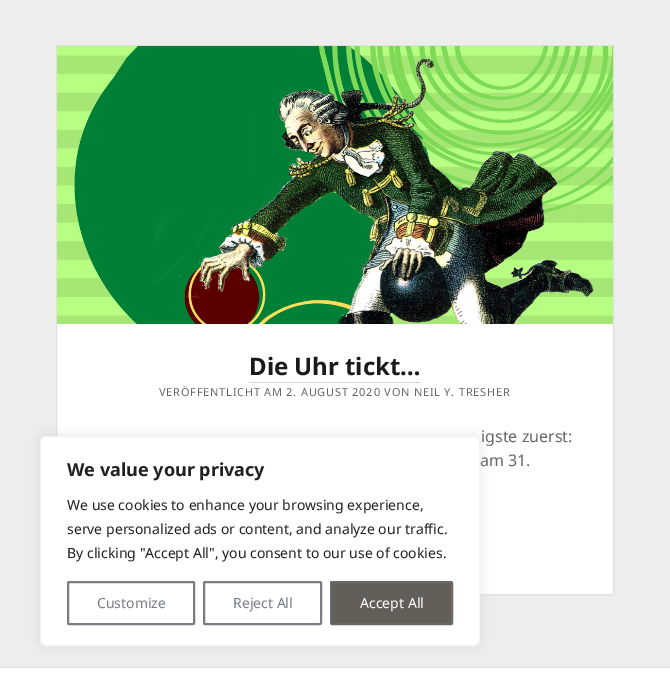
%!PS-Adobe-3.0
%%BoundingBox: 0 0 670 686
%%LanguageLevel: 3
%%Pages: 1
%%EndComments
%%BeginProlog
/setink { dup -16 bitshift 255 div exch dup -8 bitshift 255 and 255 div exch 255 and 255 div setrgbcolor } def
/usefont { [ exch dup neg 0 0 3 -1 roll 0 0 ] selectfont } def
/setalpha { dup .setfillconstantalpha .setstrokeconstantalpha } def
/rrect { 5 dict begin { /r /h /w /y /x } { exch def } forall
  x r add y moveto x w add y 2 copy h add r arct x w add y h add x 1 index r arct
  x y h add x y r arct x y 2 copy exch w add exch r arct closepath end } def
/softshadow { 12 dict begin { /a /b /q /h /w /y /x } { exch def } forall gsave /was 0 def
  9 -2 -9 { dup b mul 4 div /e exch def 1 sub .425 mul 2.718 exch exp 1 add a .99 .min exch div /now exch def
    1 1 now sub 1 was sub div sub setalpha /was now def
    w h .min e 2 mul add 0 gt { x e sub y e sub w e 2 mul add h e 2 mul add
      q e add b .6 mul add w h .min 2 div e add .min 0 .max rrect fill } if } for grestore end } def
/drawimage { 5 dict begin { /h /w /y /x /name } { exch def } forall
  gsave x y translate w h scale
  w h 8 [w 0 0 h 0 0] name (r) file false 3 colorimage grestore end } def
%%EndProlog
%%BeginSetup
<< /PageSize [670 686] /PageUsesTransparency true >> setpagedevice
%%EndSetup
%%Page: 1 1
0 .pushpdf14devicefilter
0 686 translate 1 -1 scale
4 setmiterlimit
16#EDEDED setink
0 0 670 686 rectfill
16#FFFFFF setink
57 324 556 270 rectfill
16#E0E0E0 setink
56.5 45.5 557 549 rectstroke
(img1.raw) 57 46 556 278 drawimage
/NotoSans-Bold 24 usefont
16#1A1A1A setink
249 375 moveto (Die Uhr tickt…) show
16#D4D4D4 setink
249 382 172 1 rectfill
/NotoSans-Regular 11 usefont
16#666666 setink
159 396 moveto 0.77 0 (VERÖFFENTLICHT AM 2. AUGUST 2020 VON NEIL Y. TRESHER) ashow
/NotoSans-Regular 16 usefont
481 442 moveto (igste zuerst:) show
480 466 moveto (am 31.) show
16#FFFFFF setink
0 668 670 18 rectfill
16#E0E0E0 setink
0 667 670 1 rectfill
16#ACABAB setink
40 435 440 210 6 5 0.3 softshadow
16#FFFFFF setink
40.5 436.5 439 209 5.5 rrect gsave fill grestore
16#F4F4F4 setink
stroke
/NotoSans-Bold 18 usefont
16#212121 setink
67 476 moveto (We value your privacy) show
/NotoSans-Regular 14 usefont
[
    [(We use cookies to enhance your browsing experience,) 67 510]
    [(serve personalized ads or content, and analyze our traffic.) 67 534]
    [(By clicking "Accept All", you consent to our use of cookies.) 67 558]
] { aload pop moveto show } forall
16#787D84 setink
2 setlinewidth
68 582 126 42 1 rrect stroke
97 608 moveto (Customize) show
204 582 117 42 1 rrect stroke
233 608 moveto (Reject All) show
16#635E58 setink
331 582 121 42 1 rrect gsave fill grestore
16#67696C setink
stroke
16#FFFFFF setink
360 608 moveto (Accept All) show
.poppdf14devicefilter showpage
%%EOF
